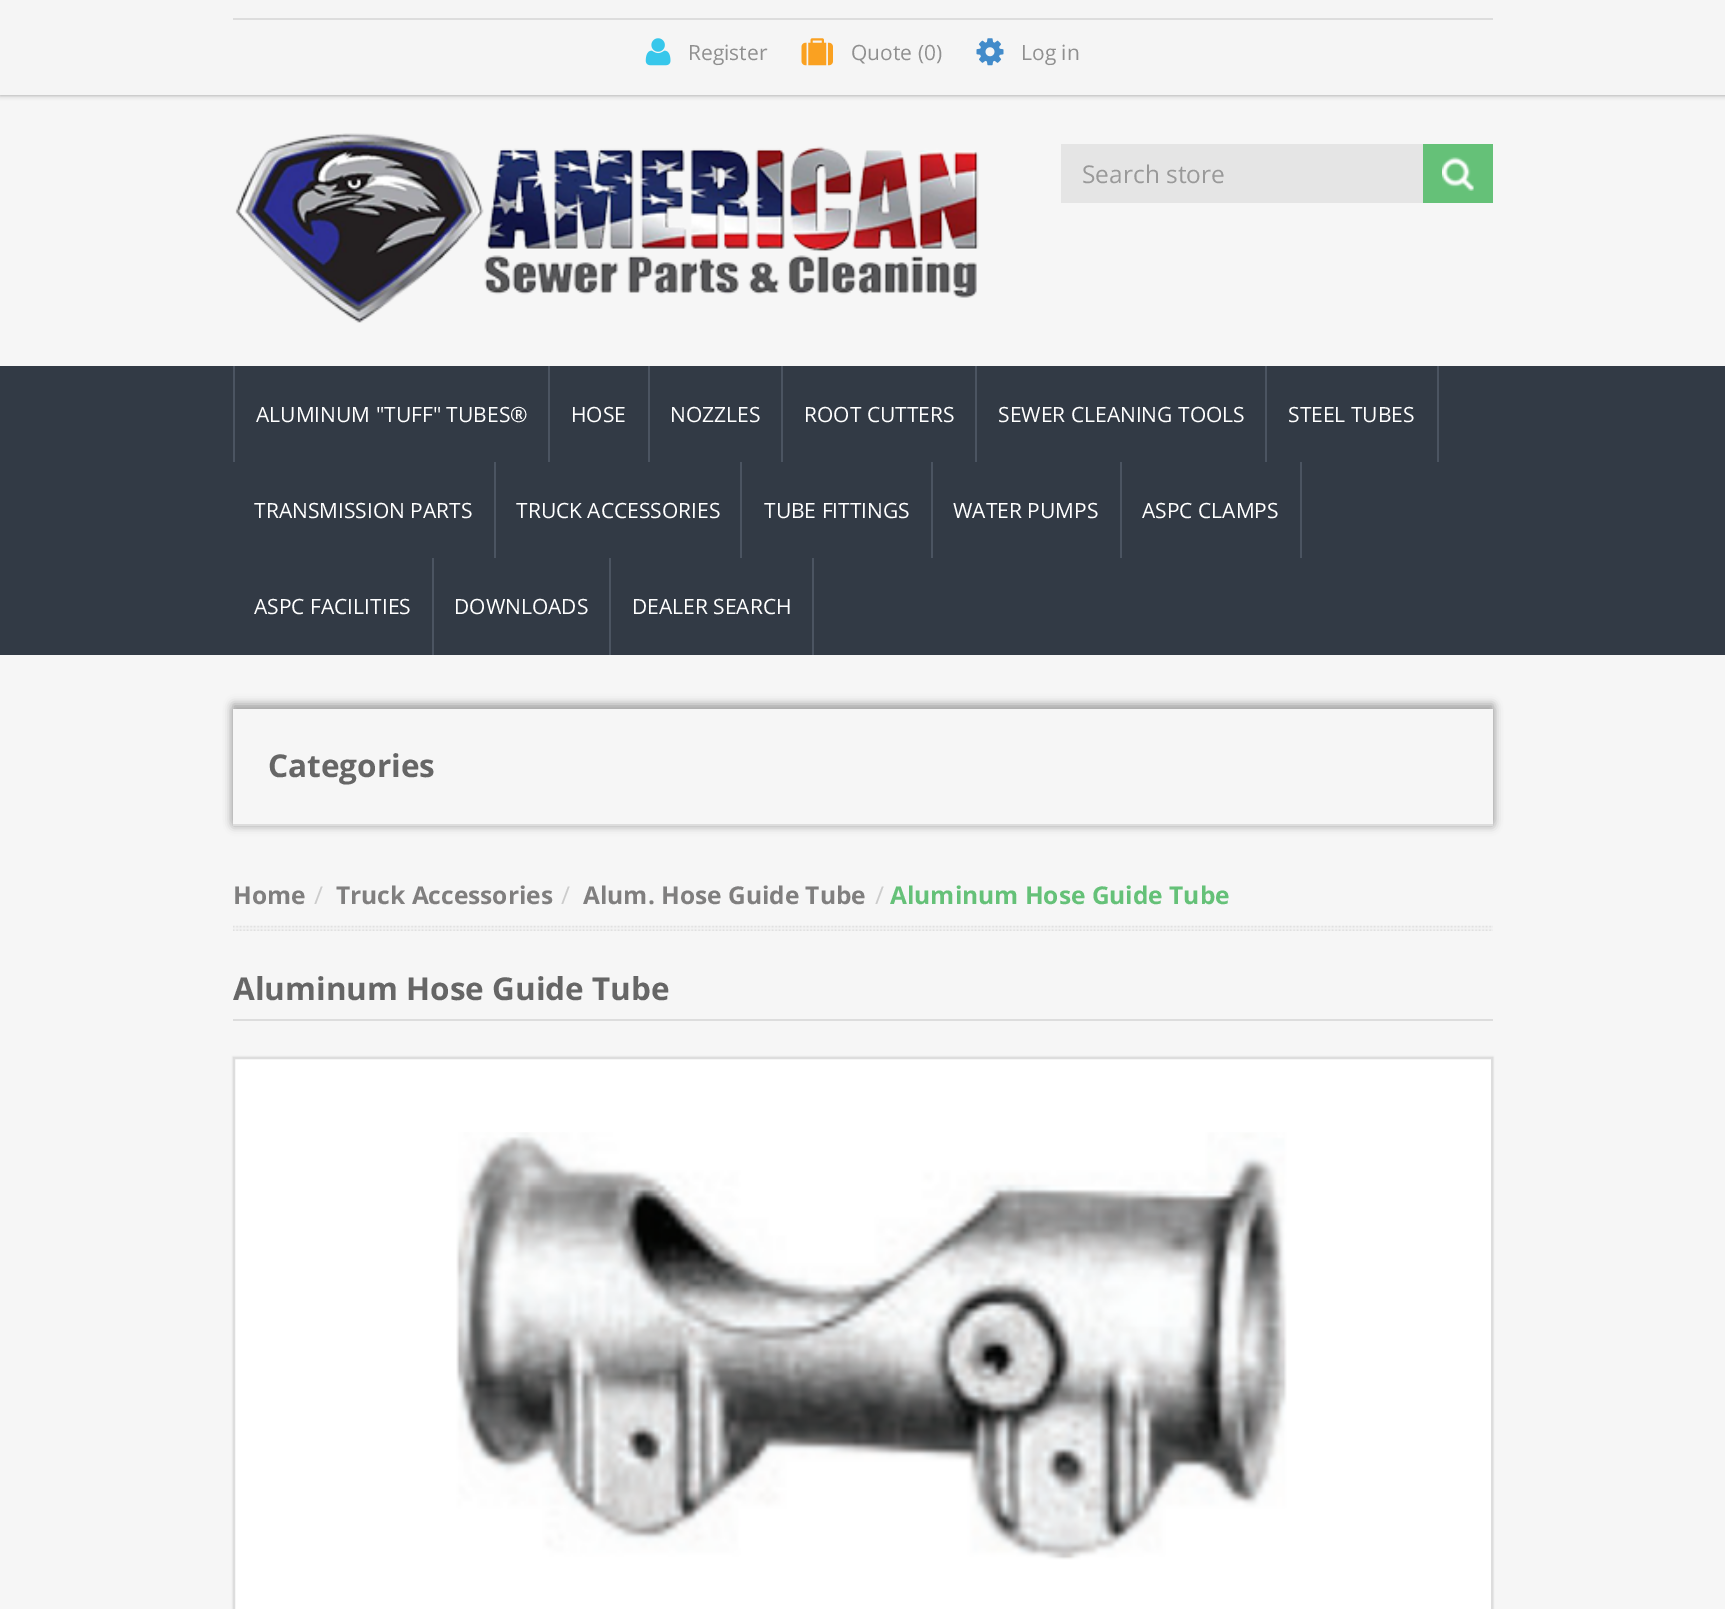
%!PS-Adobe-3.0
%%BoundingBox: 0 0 1725 1609
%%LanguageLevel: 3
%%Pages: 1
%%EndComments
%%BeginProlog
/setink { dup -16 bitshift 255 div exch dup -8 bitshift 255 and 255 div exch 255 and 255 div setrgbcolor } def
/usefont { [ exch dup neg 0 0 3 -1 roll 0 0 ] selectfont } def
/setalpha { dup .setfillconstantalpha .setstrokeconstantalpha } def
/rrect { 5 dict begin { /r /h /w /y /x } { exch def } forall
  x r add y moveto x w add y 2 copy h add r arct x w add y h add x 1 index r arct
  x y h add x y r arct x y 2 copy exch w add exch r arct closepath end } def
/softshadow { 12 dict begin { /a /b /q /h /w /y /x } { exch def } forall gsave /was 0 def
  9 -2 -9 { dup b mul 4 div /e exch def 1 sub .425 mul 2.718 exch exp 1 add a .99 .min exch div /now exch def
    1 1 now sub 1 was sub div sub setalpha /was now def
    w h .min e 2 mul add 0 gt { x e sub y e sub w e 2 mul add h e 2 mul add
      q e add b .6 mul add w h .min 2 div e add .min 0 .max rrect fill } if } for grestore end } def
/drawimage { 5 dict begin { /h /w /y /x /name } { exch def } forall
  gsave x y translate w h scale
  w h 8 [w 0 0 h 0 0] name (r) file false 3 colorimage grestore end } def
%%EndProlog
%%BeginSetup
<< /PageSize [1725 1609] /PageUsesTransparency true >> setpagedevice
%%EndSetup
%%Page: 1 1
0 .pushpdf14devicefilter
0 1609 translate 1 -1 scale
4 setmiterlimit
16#F6F6F6 setink
0 0 1725 1609 rectfill
16#999999 setink
0 0 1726 95 0 2.5 1 softshadow
16#F5F5F5 setink
0 0 1725 95 rectfill
16#DDDDDD setink
233 18 1260 2 rectfill
(img1.raw) 645 38 26 28 drawimage
/OpenSans-Regular 21 usefont
16#909090 setink
688 60 moveto (Register) show
(img2.raw) 801 38 32 28 drawimage
851 60 moveto (Quote \(0\)) show
(img3.raw) 976 38 28 28 drawimage
1021 60 moveto (Log in) show
(img4.raw) 235 133 744 190 drawimage
16#E5E5E5 setink
1061 144 362 59 rectfill
/OpenSans-Regular 24.5 usefont
16#999999 setink
1082 183 moveto (Search store) show
16#65C178 setink
1423 144 70 59 rectfill
(img5.raw) 1442 157 32 34 drawimage
[
    [0 366 1725 289 16#323A45]
    [548 366 2 96 16#4B5461]
    [233 366 2 96 16#4B5461]
] { aload pop setink rectfill } forall
/OpenSans-Regular 21 usefont
16#FFFFFF setink
256 422 moveto (ALUMINUM "TUFF" TUBES®) show
16#4B5461 setink
648 366 2 96 rectfill
16#FFFFFF setink
571 422 moveto (HOSE) show
16#4B5461 setink
781 366 2 96 rectfill
16#FFFFFF setink
670 422 moveto (NOZZLES) show
16#4B5461 setink
975 366 2 96 rectfill
16#FFFFFF setink
804 422 moveto (ROOT CUTTERS) show
16#4B5461 setink
1265 366 2 96 rectfill
16#FFFFFF setink
998 422 moveto (SEWER CLEANING TOOLS) show
16#4B5461 setink
1437 366 2 96 rectfill
16#FFFFFF setink
1288 422 moveto (STEEL TUBES) show
16#4B5461 setink
494 462 2 96 rectfill
16#FFFFFF setink
254 518 moveto (TRANSMISSION PARTS) show
16#4B5461 setink
740 462 2 96 rectfill
16#FFFFFF setink
516 518 moveto (TRUCK ACCESSORIES) show
16#4B5461 setink
931 462 2 96 rectfill
16#FFFFFF setink
764 518 moveto (TUBE FITTINGS) show
16#4B5461 setink
1120 462 2 96 rectfill
16#FFFFFF setink
953 518 moveto (WATER PUMPS) show
16#4B5461 setink
1300 462 2 96 rectfill
16#FFFFFF setink
1142 518 moveto (ASPC CLAMPS) show
16#4B5461 setink
432 558 2 97 rectfill
16#FFFFFF setink
254 614 moveto (ASPC FACILITIES) show
16#4B5461 setink
609 558 2 97 rectfill
16#FFFFFF setink
454 614 moveto (DOWNLOADS) show
16#4B5461 setink
812 558 2 97 rectfill
16#FFFFFF setink
632 614 moveto (DEALER SEARCH) show
16#AAAAAA setink
233 709 1260 117 0 4.5 1 softshadow
233 704 1260 117 0 4.5 1 softshadow
16#F6F6F6 setink
233 709 1260 115 rectfill
16#DDDDDD setink
233 824 1260 2 rectfill
/OpenSans-Bold 31.5 usefont
16#666666 setink
268 777 moveto (Categories) show
(img6.raw) 233 925 1260 6 drawimage
/OpenSans-Bold 24.5 usefont
16#807F7F setink
233 904 moveto (Home) show
/OpenSans-Regular 24.5 usefont
16#CCCCCC setink
314 904 moveto (/) show
/OpenSans-Bold 24.5 usefont
16#807F7F setink
336 904 moveto (Truck Accessories) show
/OpenSans-Regular 24.5 usefont
16#CCCCCC setink
561 904 moveto (/) show
/OpenSans-Bold 24.5 usefont
16#807F7F setink
583 904 moveto (Alum. Hose Guide Tube) show
/OpenSans-Regular 24.5 usefont
16#CCCCCC setink
875 904 moveto (/) show
/OpenSans-Bold 24.5 usefont
16#65C178 setink
890 904 moveto (Aluminum Hose Guide Tube) show
16#DDDDDD setink
233 1019 1260 2 rectfill
/OpenSans-Bold 31.5 usefont
16#666666 setink
233 1000 moveto (Aluminum Hose Guide Tube) show
16#000000 setink
233 1057 1260 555 0 1 0.15 softshadow
16#FFFFFF setink
234 1058 moveto 1492 1058 lineto 1492 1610 lineto 234 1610 lineto closepath gsave fill grestore
16#DDDDDD setink
2 setlinewidth
stroke
(img7.raw) 456 1132 831 428 drawimage
.poppdf14devicefilter showpage
%%EOF
